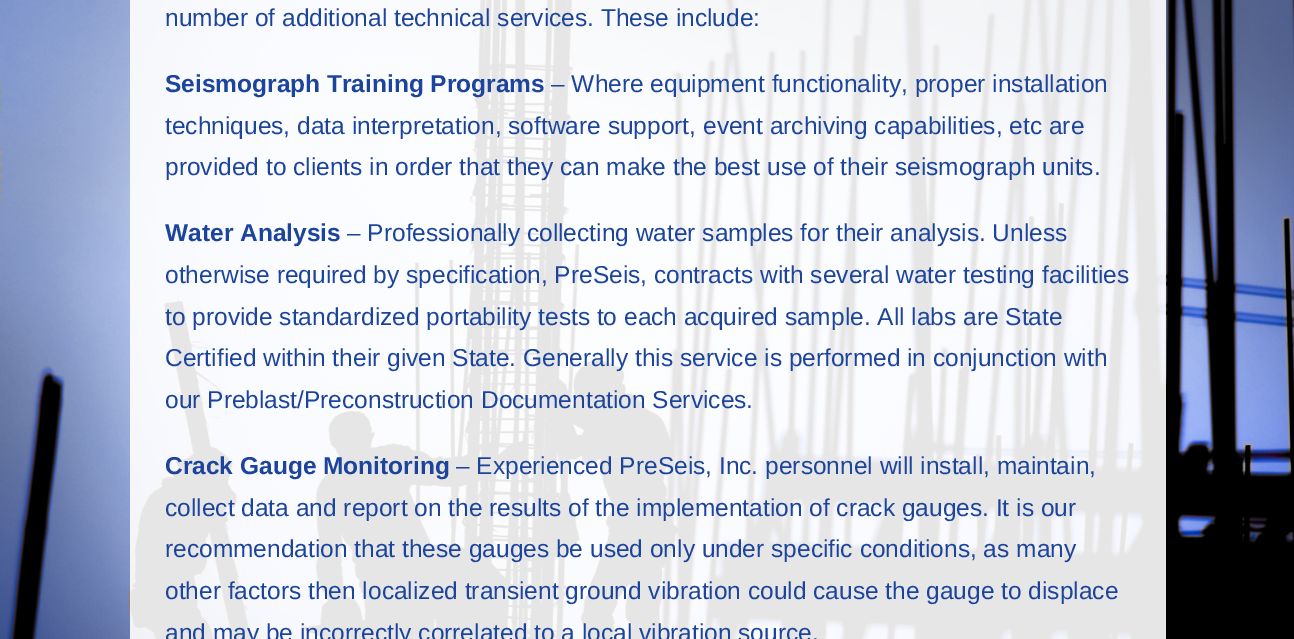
%!PS-Adobe-3.0
%%BoundingBox: 0 0 1294 639
%%LanguageLevel: 3
%%Pages: 1
%%EndComments
%%BeginProlog
/setink { dup -16 bitshift 255 div exch dup -8 bitshift 255 and 255 div exch 255 and 255 div setrgbcolor } def
/usefont { [ exch dup neg 0 0 3 -1 roll 0 0 ] selectfont } def
/setalpha { dup .setfillconstantalpha .setstrokeconstantalpha } def
/drawimage { 5 dict begin { /h /w /y /x /name } { exch def } forall
  gsave x y translate w h scale
  w h 8 [w 0 0 h 0 0] name (r) file false 3 colorimage grestore end } def
%%EndProlog
%%BeginSetup
<< /PageSize [1294 639] /PageUsesTransparency true >> setpagedevice
%%EndSetup
%%Page: 1 1
0 .pushpdf14devicefilter
0 639 translate 1 -1 scale
4 setmiterlimit
16#FFFFFF setink
0 0 1294 639 rectfill
(img1.raw) 0 0 1294 639 drawimage
0.9 setalpha
130 0 1036 639 rectfill
/LiberationSans-Regular 24.5 usefont
1 setalpha
16#1C449C setink
165 26 moveto (number of additional technical services. These include:) show
/LiberationSans-Bold 24.5 usefont
165 92 moveto (Seismograph Training Programs) show
/LiberationSans-Regular 24.5 usefont
[
    [(– Where equipment functionality, proper installation) 551 92]
    [(techniques, data interpretation, software support, event archiving capabilities, etc are) 165 134]
    [(provided to clients in order that they can make the best use of their seismograph units.) 165 175]
] { aload pop moveto show } forall
/LiberationSans-Bold 24.5 usefont
165 241 moveto (Water Analysis) show
/LiberationSans-Regular 24.5 usefont
[
    [(– Professionally collecting water samples for their analysis. Unless) 347 241]
    [(otherwise required by specification, PreSeis, contracts with several water testing facilities) 165 283]
    [(to provide standardized portability tests to each acquired sample. All labs are State) 165 325]
    [(Certified within their given State. Generally this service is performed in conjunction with) 165 366]
    [(our Preblast/Preconstruction Documentation Services.) 165 408]
] { aload pop moveto show } forall
/LiberationSans-Bold 24.5 usefont
165 474 moveto (Crack Gauge Monitoring) show
/LiberationSans-Regular 24.5 usefont
[
    [(– Experienced PreSeis, Inc. personnel will install, maintain,) 456 474]
    [(collect data and report on the results of the implementation of crack gauges. It is our) 165 516]
    [(recommendation that these gauges be used only under specific conditions, as many) 165 557]
    [(other factors then localized transient ground vibration could cause the gauge to displace) 165 599]
    [(and may be incorrectly correlated to a local vibration source.) 165 641]
] { aload pop moveto show } forall
.poppdf14devicefilter showpage
%%EOF
